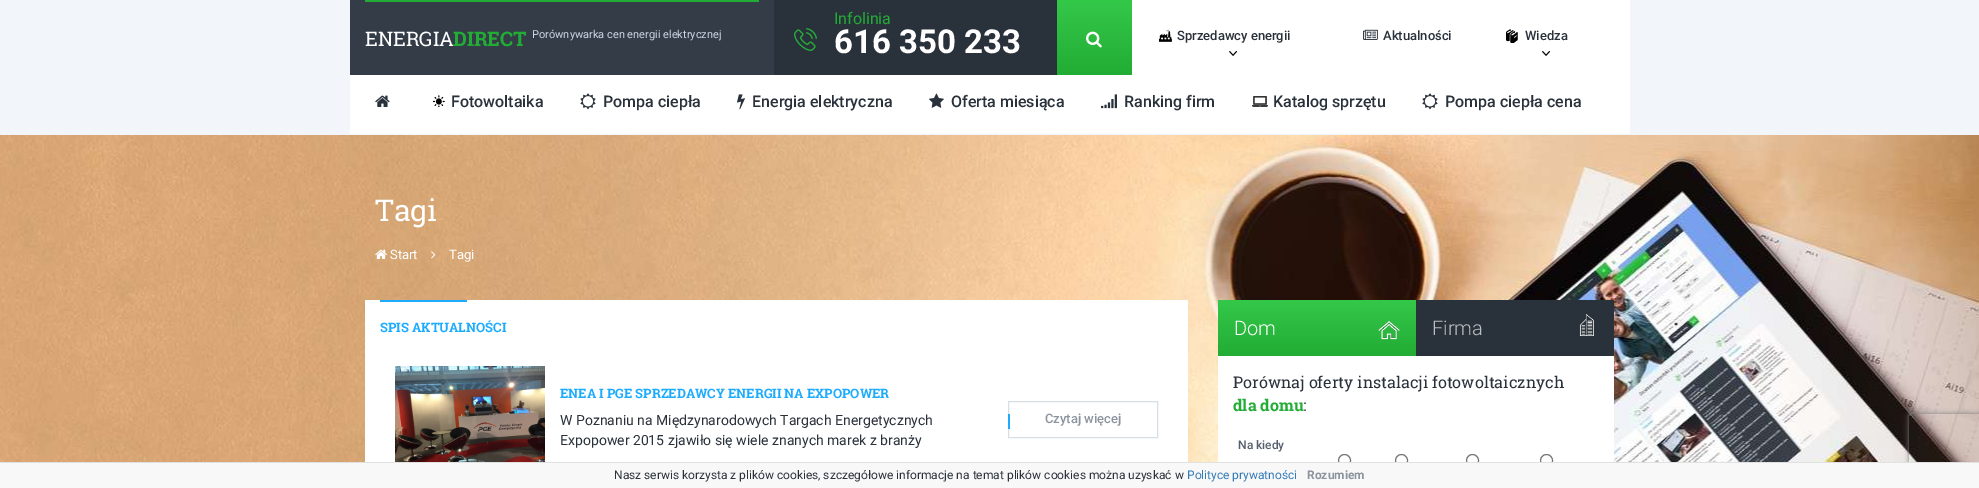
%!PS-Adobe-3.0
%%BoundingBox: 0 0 1979 488
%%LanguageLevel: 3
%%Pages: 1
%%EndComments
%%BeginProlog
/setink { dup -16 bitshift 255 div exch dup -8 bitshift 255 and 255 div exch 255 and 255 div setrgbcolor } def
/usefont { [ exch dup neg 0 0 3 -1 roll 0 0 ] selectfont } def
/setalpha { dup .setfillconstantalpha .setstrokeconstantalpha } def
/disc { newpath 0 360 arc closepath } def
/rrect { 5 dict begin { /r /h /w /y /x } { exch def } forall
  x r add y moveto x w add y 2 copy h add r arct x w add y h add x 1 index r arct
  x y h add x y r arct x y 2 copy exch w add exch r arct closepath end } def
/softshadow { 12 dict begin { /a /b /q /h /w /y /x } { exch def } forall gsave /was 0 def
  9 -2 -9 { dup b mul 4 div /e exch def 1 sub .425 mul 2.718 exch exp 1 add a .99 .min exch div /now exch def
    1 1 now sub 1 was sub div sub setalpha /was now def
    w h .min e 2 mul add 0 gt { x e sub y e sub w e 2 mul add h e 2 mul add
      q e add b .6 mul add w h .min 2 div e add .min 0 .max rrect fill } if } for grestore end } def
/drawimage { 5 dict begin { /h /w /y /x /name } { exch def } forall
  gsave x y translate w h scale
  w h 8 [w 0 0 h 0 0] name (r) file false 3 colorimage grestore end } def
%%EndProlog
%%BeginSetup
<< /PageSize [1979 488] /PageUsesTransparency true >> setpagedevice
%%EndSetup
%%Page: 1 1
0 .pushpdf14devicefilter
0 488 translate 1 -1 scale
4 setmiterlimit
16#F2F5F9 setink
0 0 1979 488 rectfill
[
    [350 0 1280 134 16#FFFFFF]
    [350 0 424 75 16#343C48]
    [365 0 394 2 16#22AC35]
] { aload pop setink rectfill } forall
/RobotoSlab-Regular 20 usefont
16#FFFFFF setink
365 46 moveto (ENERGIA) show
/RobotoSlab-Bold 20 usefont
16#22AC35 setink
453 46 moveto (DIRECT) show
/Roboto-Regular 11 usefont
16#CCD7E5 setink
532 38 moveto (Porównywarka cen energii elektrycznej) show
16#29313B setink
774 0 283 75 rectfill
(img1.raw) 794 28 23 23 drawimage
/Roboto-Regular 16 usefont
16#22AC35 setink
834 24 moveto (Infolinia) show
/Roboto-Bold 33 usefont
16#FFFFFF setink
834 53 moveto (616 350 233) show
gsave 1057 0 moveto 1132 0 lineto 1132 75 lineto 1057 75 lineto closepath clip newpath
<< /ShadingType 2 /ColorSpace /DeviceRGB /Coords [1095 0 1095 75] /Extend [true true] /Function << /FunctionType 2 /Domain [0 1] /C0 [0.204 0.784 0.286] /C1 [0.133 0.675 0.208] /N 1 >> >> shfill grestore
(img2.raw) 1086 31 16 17 drawimage
(img3.raw) 1159 30 13 12 drawimage
/Roboto-Medium 13 usefont
16#29313B setink
1177 40 moveto (Sprzedawcy energii) show
(img4.raw) 1229 51 8 5 drawimage
(img5.raw) 1363 29 15 11 drawimage
1383 40 moveto (Aktualności) show
(img6.raw) 1506 29 12 14 drawimage
1525 40 moveto (Wiedza) show
(img4.raw) 1542 51 8 5 drawimage
(img7.raw) 375 95 15 12 drawimage
(img8.raw) 433 95 12 12 drawimage
/Roboto-Medium 16 usefont
451 107 moveto (Fotowoltaika) show
(img9.raw) 580 93 16 17 drawimage
603 107 moveto (Pompa ciepła) show
(img10.raw) 737 94 8 16 drawimage
752 107 moveto (Energia elektryczna) show
(img11.raw) 929 93 15 15 drawimage
951 107 moveto (Oferta miesiąca) show
(img12.raw) 1101 94 16 15 drawimage
1124 107 moveto (Ranking firm) show
(img13.raw) 1252 96 16 11 drawimage
1273 107 moveto (Katalog sprzętu) show
(img9.raw) 1422 93 16 17 drawimage
1445 107 moveto (Pompa ciepła cena) show
(img14.raw) 0 135 1979 327 drawimage
/RobotoSlab-Regular 30 usefont
16#FFFFFF setink
375 221 moveto (Tagi) show
(img15.raw) 375 249 12 10 drawimage
/Roboto-Regular 13 usefont
390 259 moveto (Start) show
(img16.raw) 431 251 5 8 drawimage
449 259 moveto (Tagi) show
365 300 823 162 rectfill
16#1DACFD setink
380 300 87 2 rectfill
/RobotoSlab-Bold 13 usefont
380 332 moveto (SPIS AKTUALNOŚCI) show
(img17.raw) 395 366 150 96 drawimage
560 398 moveto (ENEA I PGE SPRZEDAWCY ENERGII NA EXPOPOWER) show
/Roboto-Regular 14 usefont
16#29313B setink
560 425 moveto (W Poznaniu na Międzynarodowych Targach Energetycznych) show
560 445 moveto (Expopower 2015 zjawiło się wiele znanych marek z branży) show
16#D8DEE5 setink
1008.5 401.5 149 36 rectstroke
16#1DACFD setink
1008 414 2 15 rectfill
/Roboto-Medium 13 usefont
16#8C949F setink
1045 423 moveto (Czytaj więcej) show
16#29313B setink
1416 300 198 56 rectfill
gsave 1218 300 moveto 1416 300 lineto 1416 356 lineto 1218 356 lineto closepath clip newpath
<< /ShadingType 2 /ColorSpace /DeviceRGB /Coords [1317 300 1317 356] /Extend [true true] /Function << /FunctionType 2 /Domain [0 1] /C0 [0.204 0.784 0.286] /C1 [0.133 0.675 0.208] /N 1 >> >> shfill grestore
/Roboto-Light 20 usefont
16#FFFFFF setink
1234 335 moveto (Dom) show
(img18.raw) 1378 321 22 19 drawimage
16#BDBFC1 setink
1432 335 moveto (Firma) show
(img19.raw) 1579 314 15 22 drawimage
16#FFFFFF setink
1218 356 396 106 rectfill
/RobotoSlab-Regular 16 usefont
16#29313B setink
1233 388 moveto (Porównaj oferty instalacji fotowoltaicznych) show
/RobotoSlab-Bold 16 usefont
16#22AC35 setink
1233 411 moveto (dla domu) show
/RobotoSlab-Regular 16 usefont
16#29313B setink
1303 411 moveto (:) show
/Roboto-Medium 12 usefont
16#555F6C setink
1238 449 moveto (Na kiedy) show
16#767676 setink
1344.5 460.5 6 disc stroke
1401.5 460.5 6 disc stroke
1472.5 460.5 6 disc stroke
1546.5 460.5 6 disc stroke
gsave
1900 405 moveto 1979 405 lineto 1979 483 lineto 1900 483 lineto closepath 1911 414 moveto 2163 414 lineto 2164 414 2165 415 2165 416 curveto 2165 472 lineto 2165 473 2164 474 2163 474 curveto 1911 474 lineto 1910 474 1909 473 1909 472 curveto 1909 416 lineto 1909 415 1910 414 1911 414 curveto closepath eoclip newpath
16#808080 setink
1909 414 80 60 2 2.5 1 softshadow
grestore
16#F8F8F8 setink
0 463 1979 25 rectfill
16#E1E1E1 setink
0 462 1979 1 rectfill
/Roboto-Regular 12 usefont
16#29313B setink
614 479 moveto (Nasz serwis korzysta z plików cookies, szczegółowe informacje na temat plików cookies można uzyskać w) show
16#337AB7 setink
1187 479 moveto (Polityce prywatności) show
/Roboto-Bold 12 usefont
16#8C949F setink
1307 479 moveto (Rozumiem) show
.poppdf14devicefilter showpage
%%EOF
